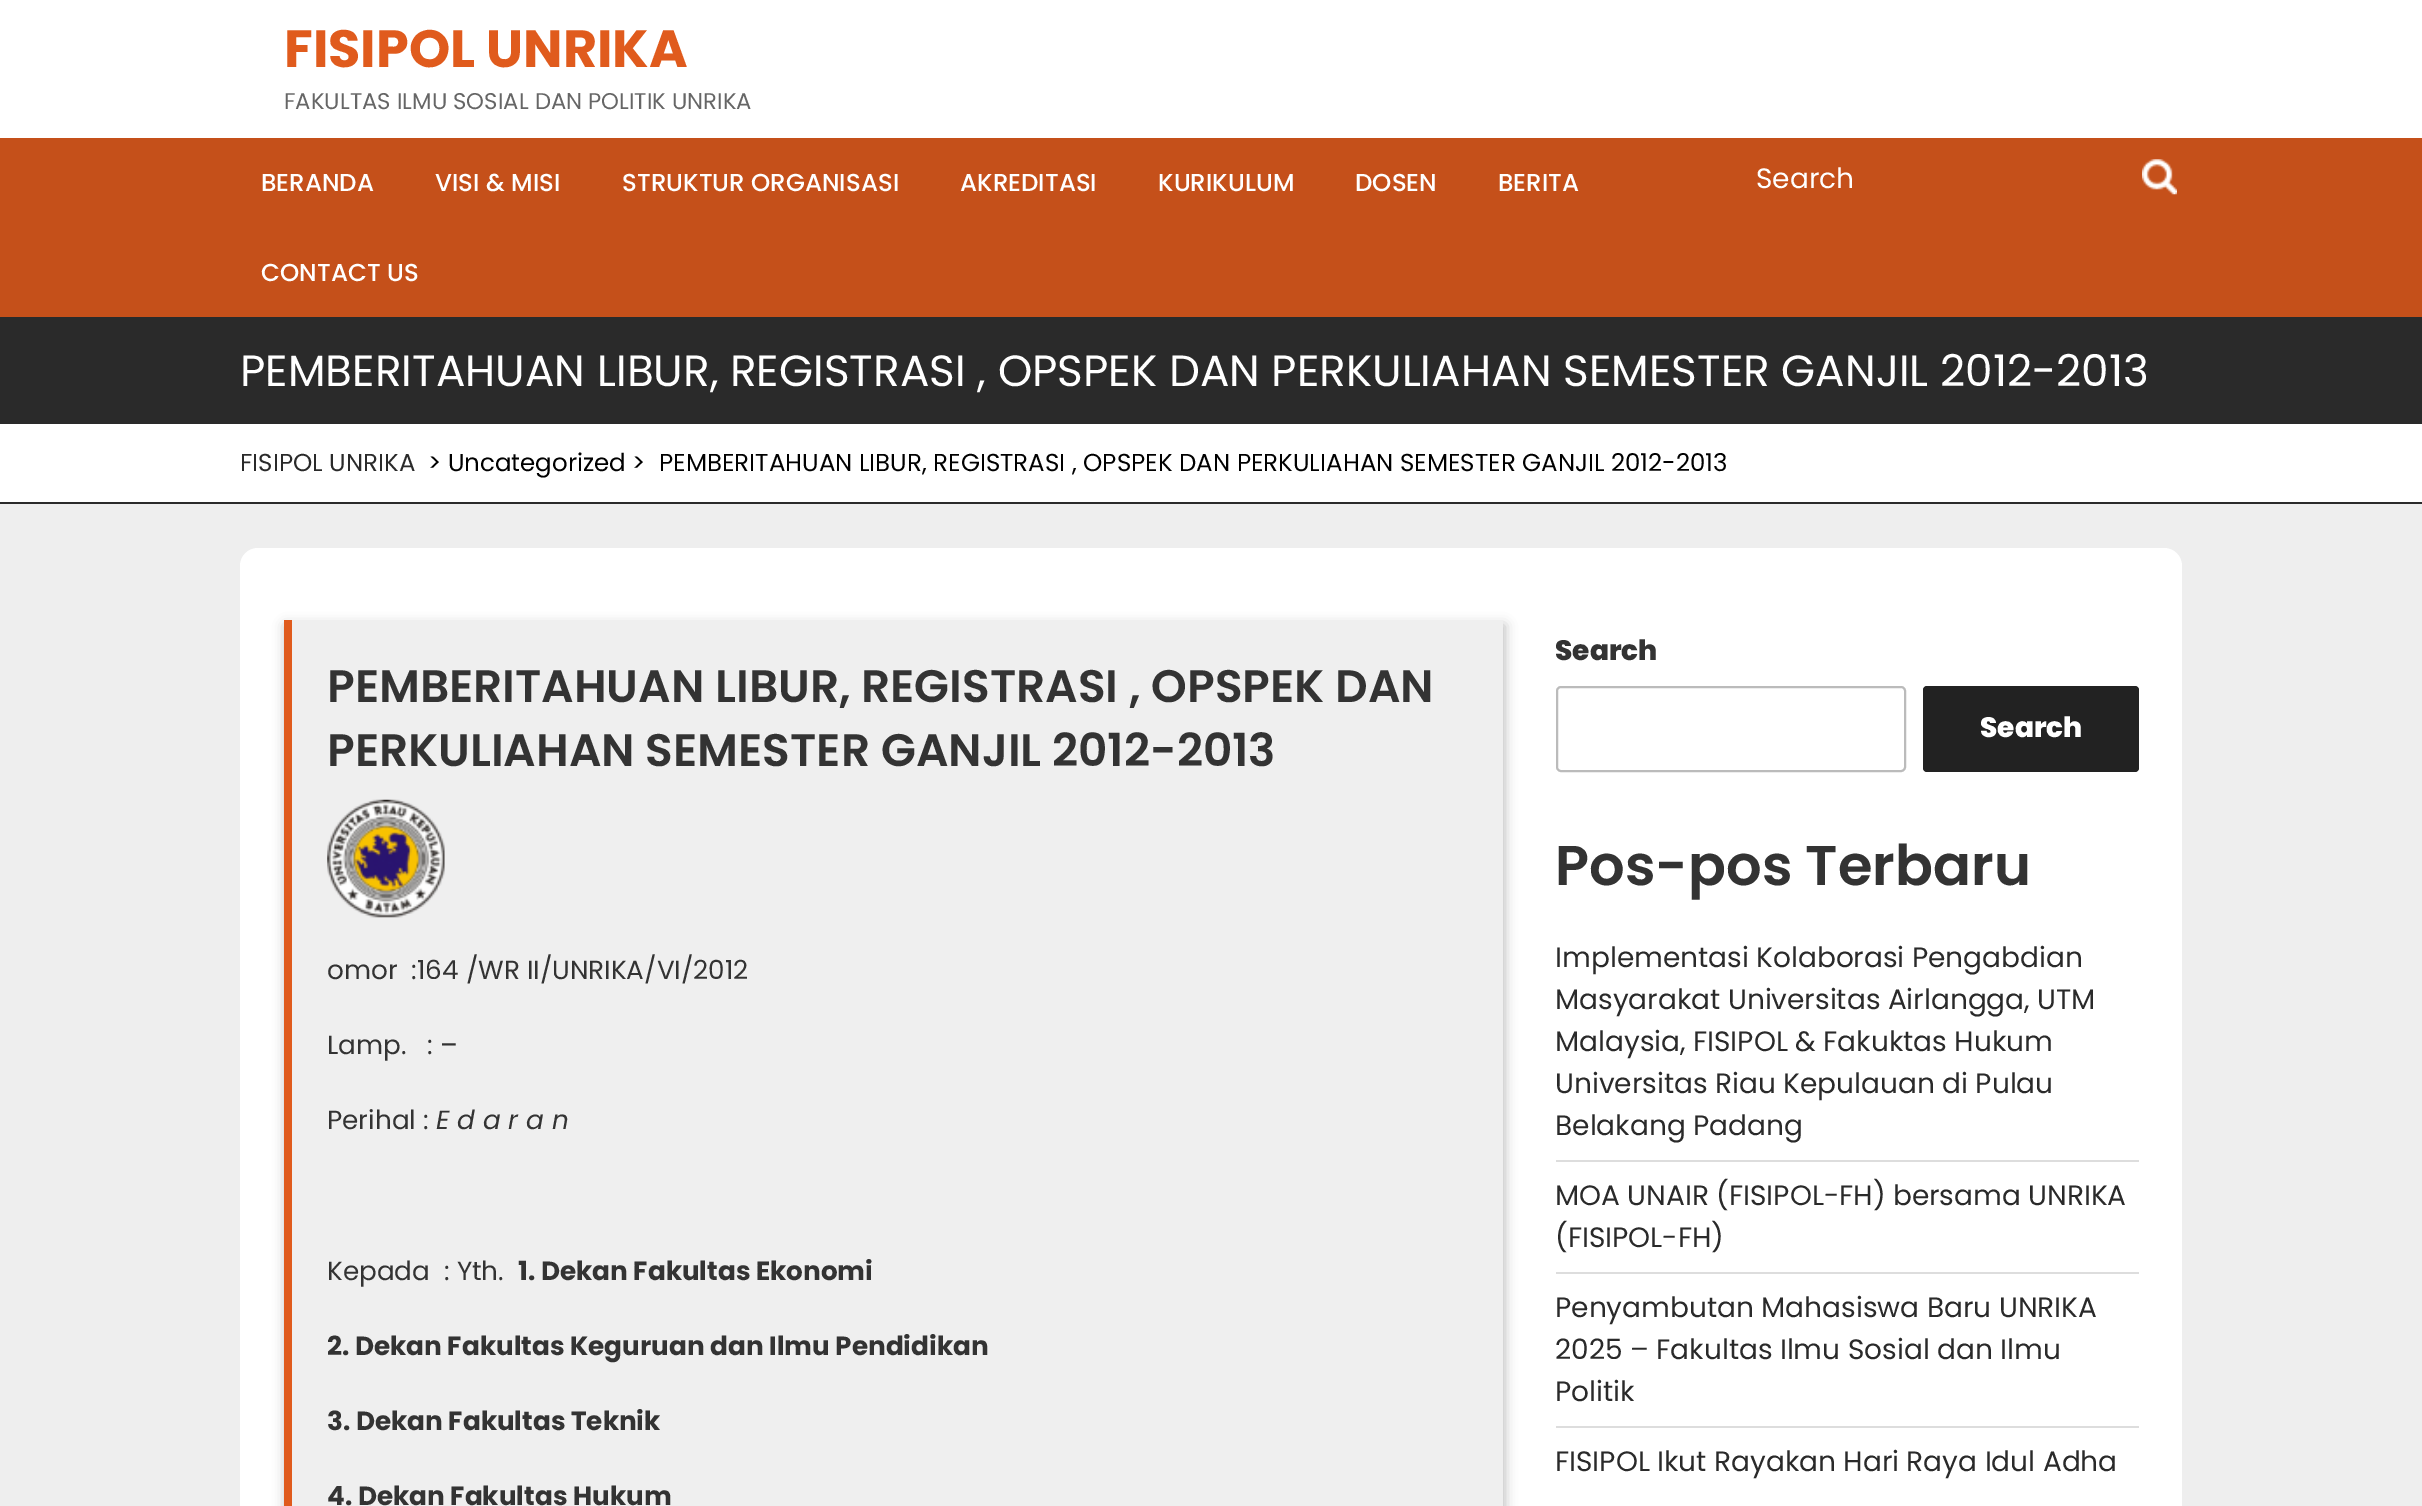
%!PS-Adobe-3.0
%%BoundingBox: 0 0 2422 1506
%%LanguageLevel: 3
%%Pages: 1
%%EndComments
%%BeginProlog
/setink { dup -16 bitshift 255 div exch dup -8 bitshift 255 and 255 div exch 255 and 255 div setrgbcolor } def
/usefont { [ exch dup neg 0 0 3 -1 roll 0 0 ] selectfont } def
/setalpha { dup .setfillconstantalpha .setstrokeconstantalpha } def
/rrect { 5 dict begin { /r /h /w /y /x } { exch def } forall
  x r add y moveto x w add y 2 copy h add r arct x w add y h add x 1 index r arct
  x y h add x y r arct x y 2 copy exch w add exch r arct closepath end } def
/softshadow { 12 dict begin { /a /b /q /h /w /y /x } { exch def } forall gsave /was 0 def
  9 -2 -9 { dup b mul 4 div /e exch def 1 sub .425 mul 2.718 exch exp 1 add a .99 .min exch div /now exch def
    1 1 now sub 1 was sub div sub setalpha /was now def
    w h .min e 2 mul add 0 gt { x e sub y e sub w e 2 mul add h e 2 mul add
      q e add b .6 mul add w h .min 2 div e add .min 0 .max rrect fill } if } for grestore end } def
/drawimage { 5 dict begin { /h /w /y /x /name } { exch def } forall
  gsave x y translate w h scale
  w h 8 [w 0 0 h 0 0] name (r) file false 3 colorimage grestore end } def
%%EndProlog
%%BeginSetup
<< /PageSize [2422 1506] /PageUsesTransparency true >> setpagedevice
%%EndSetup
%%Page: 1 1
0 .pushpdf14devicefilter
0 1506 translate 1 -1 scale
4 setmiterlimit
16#FFFFFF setink
0 0 2422 1506 rectfill
/Poppins-Bold 52.5 usefont
16#E05B1D setink
284 67 moveto (FISIPOL UNRIKA) show
/Poppins-Regular 22.75 usefont
16#666666 setink
284 109 moveto (FAKULTAS ILMU SOSIAL DAN POLITIK UNRIKA) show
16#C5501A setink
0 138 2422 179 rectfill
/Poppins-Medium 24.5 usefont
16#FFFFFF setink
[
    [(BERANDA) 261 191]
    [(VISI & MISI) 435 191]
    [(STRUKTUR ORGANISASI) 622 191]
    [(AKREDITASI) 960 191]
    [(KURIKULUM) 1158 191]
    [(DOSEN) 1355 191]
    [(BERITA) 1498 191]
    [(CONTACT US) 261 281]
] { aload pop moveto show } forall
/Poppins-Regular 28 usefont
1756 188 moveto (Search) show
(img1.raw) 2142 159 35 36 drawimage
16#2A2A2A setink
0 317 2422 107 rectfill
/Poppins-Regular 43.75 usefont
16#FFFFFF setink
240 386 moveto (PEMBERITAHUAN LIBUR, REGISTRASI , OPSPEK DAN PERKULIAHAN SEMESTER GANJIL 2012-2013) show
16#2A2A2A setink
0 502 2422 2 rectfill
/Poppins-Regular 24.5 usefont
240 471 moveto (FISIPOL UNRIKA) show
16#000000 setink
428 471 moveto (> Uncategorized >) show
659 471 moveto (PEMBERITAHUAN LIBUR, REGISTRASI , OPSPEK DAN PERKULIAHAN SEMESTER GANJIL 2012-2013) show
16#EEEEEE setink
0 504 2422 1002 rectfill
16#FFFFFF setink
240 548 1942 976 18 rrect fill
16#BBBBBB setink
285 625 1220 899 0 6 1 softshadow
16#EFEFEF setink
292 620 1211 886 rectfill
16#E05B1D setink
284 620 8 886 rectfill
/Poppins-SemiBold 45.5 usefont
16#333333 setink
327 702 moveto (PEMBERITAHUAN LIBUR, REGISTRASI , OPSPEK DAN) show
327 766 moveto (PERKULIAHAN SEMESTER GANJIL 2012-2013) show
(img2.raw) 327 799 118 119 drawimage
/Poppins-Regular 26.25 usefont
[
    [(omor  :164 /WR II/UNRIKA/VI/2012) 327 979]
    [(Lamp.   : –) 327 1054]
    [(Perihal :) 327 1129]
] { aload pop moveto show } forall
/Poppins-Italic 26.25 usefont
436 1129 moveto (E d a r a n) show
/Poppins-Regular 26.25 usefont
327 1280 moveto (Kepada  : Yth.) show
/Poppins-Bold 26.25 usefont
[
    [(1. Dekan Fakultas Ekonomi) 518 1280]
    [(2. Dekan Fakultas Keguruan dan Ilmu Pendidikan) 327 1355]
    [(3. Dekan Fakultas Teknik) 327 1430]
    [(4. Dekan Fakultas Hukum) 327 1505]
] { aload pop moveto show } forall
/Poppins-ExtraBold 28 usefont
1555 660 moveto (Search) show
16#BBBBBB setink
2 setlinewidth
1557 687 348 84 4 rrect stroke
16#222222 setink
1923 686 216 86 4 rrect fill
16#FFFFFF setink
1980 737 moveto (Search) show
/Poppins-SemiBold 56 usefont
16#333333 setink
1555 885 moveto (Pos-pos Terbaru) show
16#DDDDDD setink
1556 1160 583 2 rectfill
/Poppins-Regular 28 usefont
16#2A2A2A setink
[
    [(Implementasi Kolaborasi Pengabdian) 1555 967]
    [(Masyarakat Universitas Airlangga, UTM) 1555 1009]
    [(Malaysia, FISIPOL & Fakuktas Hukum) 1555 1051]
    [(Universitas Riau Kepulauan di Pulau) 1555 1093]
    [(Belakang Padang) 1555 1135]
] { aload pop moveto show } forall
16#DDDDDD setink
1556 1272 583 2 rectfill
16#2A2A2A setink
1555 1205 moveto (MOA UNAIR \(FISIPOL-FH\) bersama UNRIKA) show
1555 1247 moveto (\(FISIPOL-FH\)) show
16#DDDDDD setink
1556 1426 583 2 rectfill
16#2A2A2A setink
[
    [(Penyambutan Mahasiswa Baru UNRIKA) 1555 1317]
    [(2025 – Fakultas Ilmu Sosial dan Ilmu) 1555 1359]
    [(Politik) 1555 1401]
    [(FISIPOL Ikut Rayakan Hari Raya Idul Adha) 1555 1471]
] { aload pop moveto show } forall
.poppdf14devicefilter showpage
%%EOF
